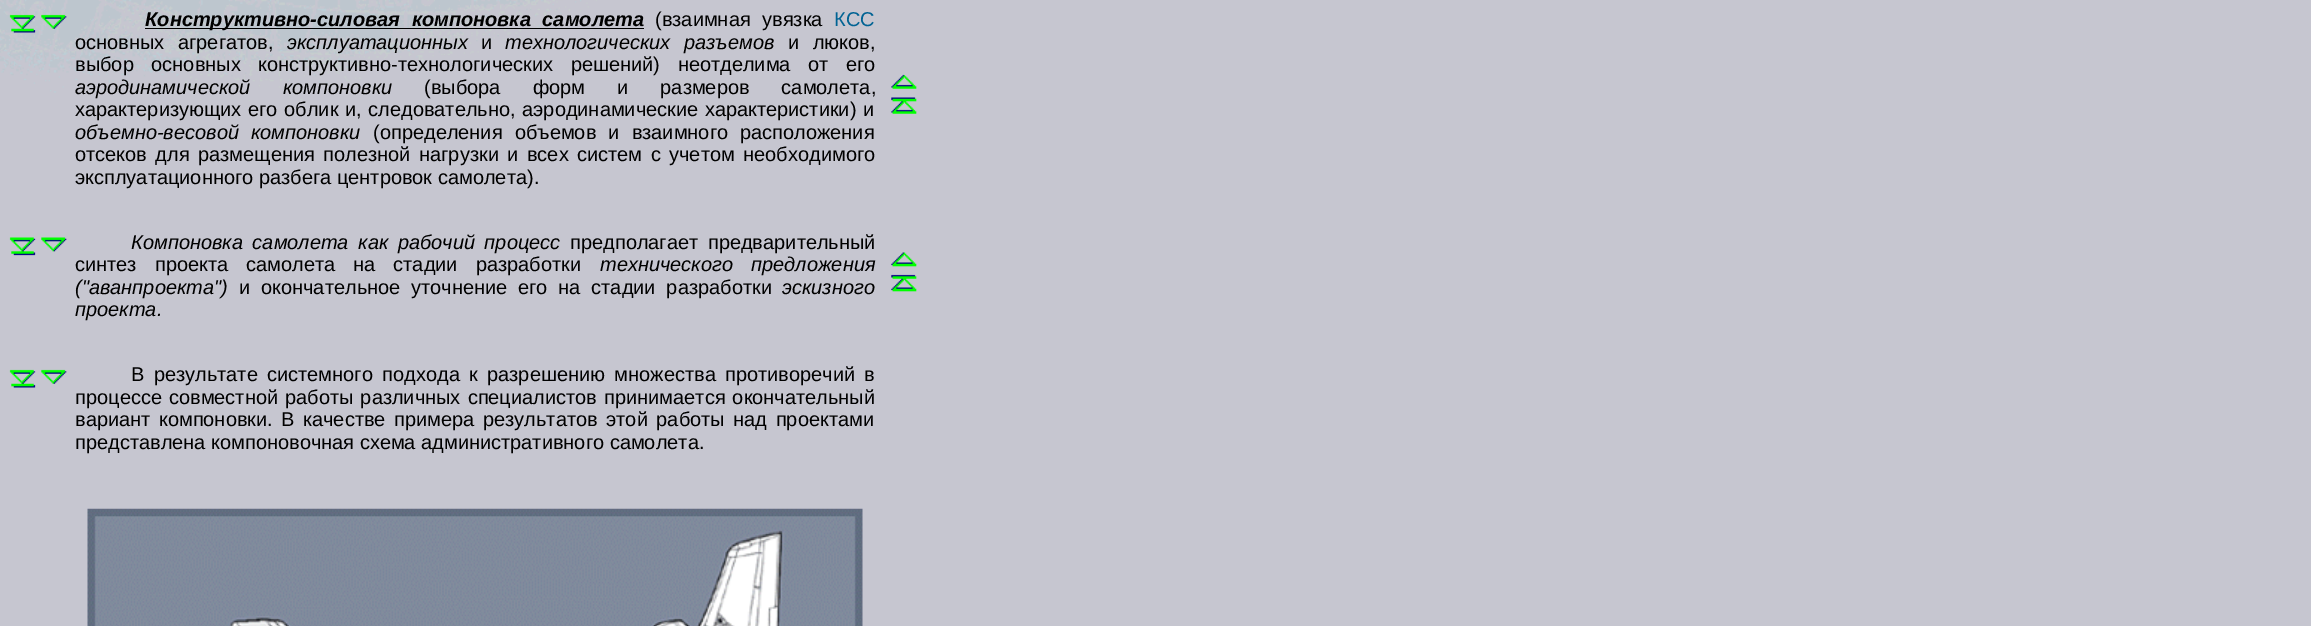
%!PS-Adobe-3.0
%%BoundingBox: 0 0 2311 626
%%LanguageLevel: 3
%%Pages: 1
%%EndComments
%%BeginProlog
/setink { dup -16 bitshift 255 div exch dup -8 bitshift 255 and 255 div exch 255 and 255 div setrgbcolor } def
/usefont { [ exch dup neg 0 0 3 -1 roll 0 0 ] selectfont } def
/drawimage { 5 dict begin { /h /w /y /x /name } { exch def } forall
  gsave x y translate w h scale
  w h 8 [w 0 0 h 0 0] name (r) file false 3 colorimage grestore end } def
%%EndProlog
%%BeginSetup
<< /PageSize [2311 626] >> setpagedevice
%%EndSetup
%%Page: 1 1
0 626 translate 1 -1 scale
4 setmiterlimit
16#C6C6D0 setink
0 0 2311 626 rectfill
(img1.raw) 0 0 597 101 drawimage
(img2.raw) 9 14 27 19 drawimage
(img3.raw) 41 14 26 15 drawimage
16#000000 setink
145 28 499 1 rectfill
/LiberationSans-BoldItalic 20 usefont
145 26 moveto 6 0 32 (Конструктивно-силовая компоновка самолета) widthshow
/LiberationSans-Regular 20 usefont
655 26 moveto 6 0 32 (\(взаимная увязка) widthshow
16#006394 setink
834 26 moveto (КСС) show
16#000000 setink
75 49 moveto 8 0 32 (основных агрегатов,) widthshow
/LiberationSans-Italic 20 usefont
287 49 moveto (эксплуатационных) show
/LiberationSans-Regular 20 usefont
481 49 moveto (и) show
/LiberationSans-Italic 20 usefont
505 49 moveto 8 0 32 (технологических разъемов) widthshow
/LiberationSans-Regular 20 usefont
788 49 moveto 8 0 32 (и люков,) widthshow
75 71 moveto 12 0 32 (выбор основных конструктивно-технологических решений\) неотделима от его) widthshow
/LiberationSans-Italic 20 usefont
75 94 moveto 26.5 0 32 (аэродинамической компоновки) widthshow
/LiberationSans-Regular 20 usefont
424 94 moveto 26.5 0 32 (\(выбора форм и размеров самолета,) widthshow
75 116 moveto 1 0 32 (характеризующих его облик и, следовательно, аэродинамические характеристики\) и) widthshow
/LiberationSans-Italic 20 usefont
75 139 moveto 6.5 0 32 (объемно-весовой компоновки) widthshow
/LiberationSans-Regular 20 usefont
373 139 moveto 6.5 0 32 (\(определения объемов и взаимного расположения) widthshow
75 161 moveto 2.9 0 32 (отсеков для размещения полезной нагрузки и всех систем с учетом необходимого) widthshow
75 184 moveto (эксплуатационного разбега центровок самолета\).) show
(img4.raw) 891 74 26 15 drawimage
(img5.raw) 891 97 26 17 drawimage
(img6.raw) 9 237 27 19 drawimage
(img7.raw) 41 237 26 15 drawimage
/LiberationSans-Italic 20 usefont
131 249 moveto 4 0 32 (Компоновка самолета как рабочий процесс) widthshow
/LiberationSans-Regular 20 usefont
570 249 moveto 4 0 32 (предполагает предварительный) widthshow
75 271 moveto 12.5 0 32 (синтез проекта самолета на стадии разработки) widthshow
/LiberationSans-Italic 20 usefont
600 271 moveto 12.5 0 32 (технического предложения) widthshow
75 294 moveto (\("аванпроекта"\)) show
/LiberationSans-Regular 20 usefont
239 294 moveto 5.25 0 32 (и окончательное уточнение его на стадии разработки) widthshow
/LiberationSans-Italic 20 usefont
782 294 moveto (эскизного) show
75 316 moveto (проекта.) show
(img8.raw) 891 252 26 15 drawimage
(img9.raw) 891 274 26 18 drawimage
(img10.raw) 9 369 27 19 drawimage
(img11.raw) 41 369 26 15 drawimage
/LiberationSans-Regular 20 usefont
131 381 moveto 3.75 0 32 (В результате системного подхода к разрешению множества противоречий в) widthshow
75 404 moveto 1.5 0 32 (процессе совместной работы различных специалистов принимается окончательный) widthshow
75 426 moveto 3 0 32 (вариант компоновки. В качестве примера результатов этой работы над проектами) widthshow
75 449 moveto (представлена компоновочная схема административного самолета.) show
(img12.raw) 87 508 776 118 drawimage
showpage
%%EOF
